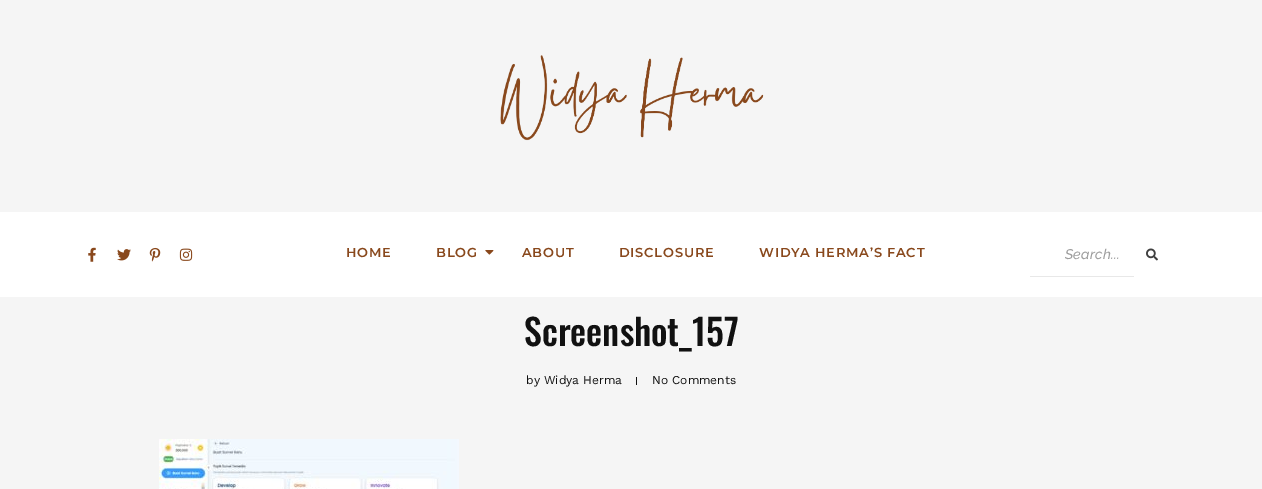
%!PS-Adobe-3.0
%%BoundingBox: 0 0 1262 489
%%LanguageLevel: 3
%%Pages: 1
%%EndComments
%%BeginProlog
/setink { dup -16 bitshift 255 div exch dup -8 bitshift 255 and 255 div exch 255 and 255 div setrgbcolor } def
/usefont { [ exch dup neg 0 0 3 -1 roll 0 0 ] selectfont } def
/drawimage { 5 dict begin { /h /w /y /x /name } { exch def } forall
  gsave x y translate w h scale
  w h 8 [w 0 0 h 0 0] name (r) file false 3 colorimage grestore end } def
%%EndProlog
%%BeginSetup
<< /PageSize [1262 489] >> setpagedevice
%%EndSetup
%%Page: 1 1
0 489 translate 1 -1 scale
4 setmiterlimit
16#F5F5F5 setink
0 0 1262 489 rectfill
(img1.raw) 500 55 264 86 drawimage
16#FFFFFF setink
0 212 1262 85 rectfill
(img2.raw) 88 247 8 15 drawimage
(img3.raw) 117 249 14 12 drawimage
(img4.raw) 149 247 12 15 drawimage
(img5.raw) 179 248 14 13 drawimage
/Montserrat-SemiBold 13 usefont
16#89481C setink
346 257 moveto 0.75 0 (HOME) ashow
436 257 moveto 0.75 0 (BLOG) ashow
(img6.raw) 485 250 9 5 drawimage
522 257 moveto 0.75 0 (ABOUT) ashow
619 257 moveto 0.75 0 (DISCLOSURE) ashow
759 257 moveto 0.75 0 (WIDYA HERMA’S FACT) ashow
16#E8E8E8 setink
1030 276 104 1 rectfill
/Raleway-MediumItalic 14 usefont
16#9E9E9E setink
1065 259 moveto 0.25 0 (Search...) ashow
(img7.raw) 1146 248 12 13 drawimage
/Oswald-Medium 36 usefont
16#111111 setink
524 346 moveto (Screenshot_157) show
/WorkSans-Regular 12 usefont
526 384 moveto (by Widya Herma) show
636 377 1 8 rectfill
652 384 moveto (No Comments) show
(img8.raw) 159 439 300 50 drawimage
showpage
%%EOF
